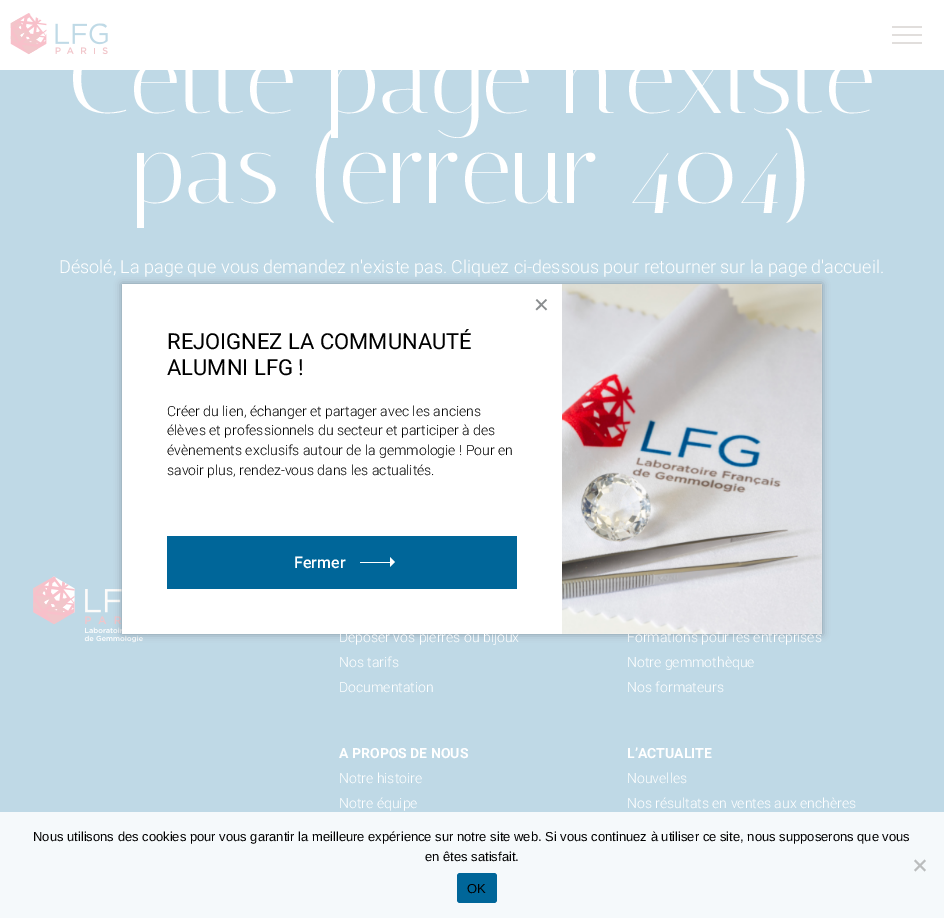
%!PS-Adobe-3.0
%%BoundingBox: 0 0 944 918
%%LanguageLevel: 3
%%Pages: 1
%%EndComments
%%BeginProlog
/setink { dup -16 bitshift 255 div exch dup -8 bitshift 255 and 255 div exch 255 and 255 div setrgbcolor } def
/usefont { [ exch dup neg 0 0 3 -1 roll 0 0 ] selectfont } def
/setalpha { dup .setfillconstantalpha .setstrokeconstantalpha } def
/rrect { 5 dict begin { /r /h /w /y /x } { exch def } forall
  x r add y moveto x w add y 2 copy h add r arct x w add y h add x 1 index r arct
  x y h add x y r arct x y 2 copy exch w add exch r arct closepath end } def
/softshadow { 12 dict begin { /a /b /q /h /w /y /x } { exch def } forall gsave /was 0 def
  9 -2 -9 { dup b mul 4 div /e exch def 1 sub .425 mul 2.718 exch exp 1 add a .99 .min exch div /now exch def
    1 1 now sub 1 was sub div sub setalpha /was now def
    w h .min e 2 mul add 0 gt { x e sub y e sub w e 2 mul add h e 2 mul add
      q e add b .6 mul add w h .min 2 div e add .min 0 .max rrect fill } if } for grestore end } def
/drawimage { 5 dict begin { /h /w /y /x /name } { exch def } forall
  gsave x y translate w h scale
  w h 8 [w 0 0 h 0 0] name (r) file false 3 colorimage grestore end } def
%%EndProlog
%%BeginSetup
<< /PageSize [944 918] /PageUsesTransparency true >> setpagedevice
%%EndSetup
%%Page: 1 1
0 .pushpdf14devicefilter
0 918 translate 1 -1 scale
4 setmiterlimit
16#BFD9E6 setink
0 0 944 918 rectfill
16#FFFFFF setink
0 0 944 70 rectfill
/Italiana-Regular 100 usefont
68 113 moveto (Cette page n'existe) show
(img1.raw) 10 13 98 42 drawimage
[
    [892 26 30 2 16#E1DEDC]
    [892 34 30 2 16#E1DEDC]
    [892 42 30 2 16#E1DEDC]
] { aload pop setink rectfill } forall
16#FFFFFF setink
132 203 moveto (pas \(erreur 404\)) show
/Roboto-Light 18 usefont
59 273 moveto (Désolé, La page que vous demandez n'existe pas. Cliquez ci-dessous pour retourner sur la page d'accueil.) show
(img3.raw) 33 576 115 67 drawimage
16#000000 setink
122 284 700 350 0 4 0.3 softshadow
16#FFFFFF setink
122 284 700 350 rectfill
/DejaVuSans-Regular 20 usefont
16#8A8D8F setink
533 312 moveto (✕) show
/Roboto-Regular 22 usefont
16#000000 setink
167 349 moveto (REJOIGNEZ LA COMMUNAUTÉ) show
167 375 moveto (ALUMNI LFG !) show
/Roboto-Light 14 usefont
[
    [(Créer du lien, échanger et partager avec les anciens) 167 416]
    [(élèves et professionnels du secteur et participer à des) 167 435]
    [(évènements exclusifs autour de la gemmologie ! Pour en) 167 455]
    [(savoir plus, rendez-vous dans les actualités.) 167 475]
] { aload pop moveto show } forall
16#006699 setink
167 536 350 53 rectfill
/Roboto-Medium 16 usefont
16#FFFFFF setink
294 568 moveto (Fermer) show
360 562 30 1 rectfill
390 567 moveto 390 557 lineto 395 562 lineto closepath fill
/Roboto-Light 14 usefont
627 642 moveto (Formations pour les entreprises) show
(img2.raw) 562 284 260 350 drawimage
16#F5F9FB setink
0 812 944 106 rectfill
16#FFFFFF setink
[
    [(Déposer vos pierres ou bijoux) 339 642]
    [(Nos tarifs) 339 667]
    [(Documentation) 339 692]
    [(Notre gemmothèque) 627 667]
    [(Nos formateurs) 627 692]
] { aload pop moveto show } forall
/Roboto-Bold 14 usefont
339 758 moveto (A PROPOS DE NOUS) show
/Roboto-Light 14 usefont
339 783 moveto (Notre histoire) show
339 808 moveto (Notre équipe) show
/Roboto-Bold 14 usefont
627 758 moveto (L’ACTUALITE) show
/Roboto-Light 14 usefont
627 783 moveto (Nouvelles) show
627 808 moveto (Nos résultats en ventes aux enchères) show
/LiberationSans-Regular 13 usefont
16#000000 setink
33 841 moveto (Nous utilisons des cookies pour vous garantir la meilleure expérience sur notre site web. Si vous continuez à utiliser ce site, nous supposerons que vous) show
425 861 moveto (en êtes satisfait.) show
16#BBBDBE setink
924.5 859.5 moveto 926 861 lineto 915.5 871.5 lineto 914 870 lineto closepath fill
914 861 moveto 915.5 859.5 lineto 926 870 lineto 924.5 871.5 lineto closepath fill
16#006699 setink
457 873 40 30 3 rrect fill
16#000000 setink
467 893 moveto (OK) show
.poppdf14devicefilter showpage
%%EOF
